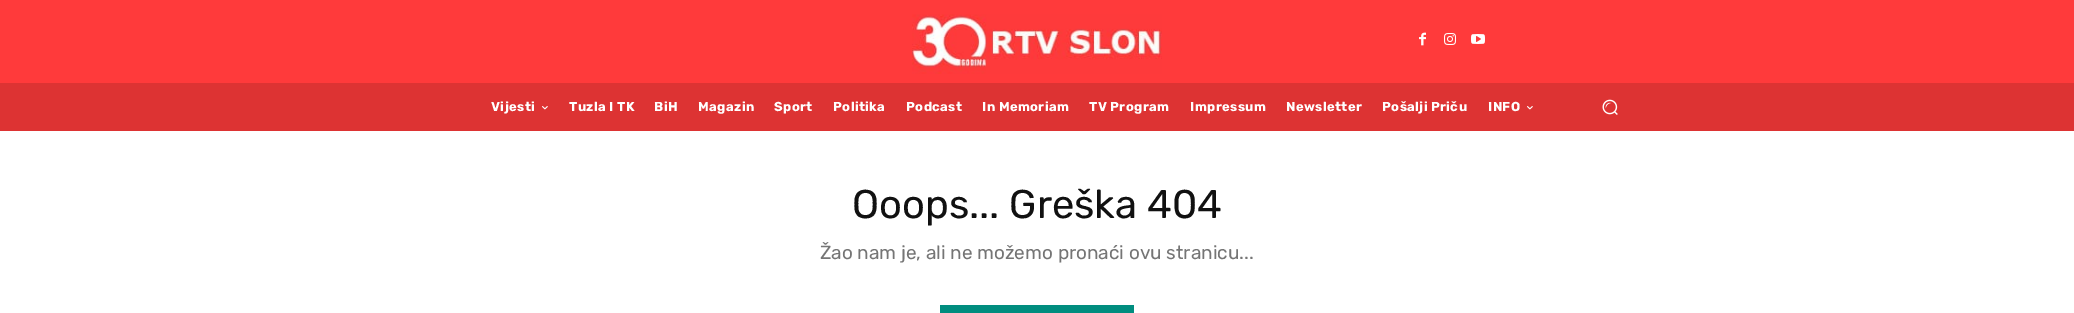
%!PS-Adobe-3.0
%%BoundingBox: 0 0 2074 313
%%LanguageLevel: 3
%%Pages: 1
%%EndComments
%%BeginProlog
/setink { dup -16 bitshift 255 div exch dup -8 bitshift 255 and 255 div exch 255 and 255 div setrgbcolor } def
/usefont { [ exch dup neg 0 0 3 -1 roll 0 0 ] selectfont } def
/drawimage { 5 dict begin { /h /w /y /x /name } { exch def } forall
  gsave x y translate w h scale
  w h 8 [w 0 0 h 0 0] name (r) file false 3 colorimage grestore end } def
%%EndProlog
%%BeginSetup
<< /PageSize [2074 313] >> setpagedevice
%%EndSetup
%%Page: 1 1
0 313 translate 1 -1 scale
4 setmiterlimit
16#FFFFFF setink
0 0 2074 313 rectfill
16#FF3A3B setink
0 0 2074 83 rectfill
(img1.raw) 912 14 250 60 drawimage
(img2.raw) 1419 32 7 14 drawimage
(img3.raw) 1444 33 12 12 drawimage
(img4.raw) 1471 34 14 10 drawimage
16#DD3333 setink
0 83 2074 48 rectfill
/Rubik-Bold 13 usefont
16#FFFFFF setink
491 111 moveto 0.4 0 (Vijesti) ashow
(img5.raw) 542 106 6 4 drawimage
569 111 moveto 0.4 0 (Tuzla I TK) ashow
654 111 moveto 0.4 0 (BiH) ashow
698 111 moveto 0.4 0 (Magazin) ashow
774 111 moveto 0.4 0 (Sport) ashow
833 111 moveto 0.4 0 (Politika) ashow
906 111 moveto 0.4 0 (Podcast) ashow
982 111 moveto 0.4 0 (In Memoriam) ashow
1089 111 moveto 0.4 0 (TV Program) ashow
1190 111 moveto 0.4 0 (Impressum) ashow
1286 111 moveto 0.4 0 (Newsletter) ashow
1382 111 moveto 0.4 0 (Pošalji Priču) ashow
1488 111 moveto 0.4 0 (INFO) ashow
(img5.raw) 1527 106 6 4 drawimage
(img6.raw) 1602 99 16 16 drawimage
/Rubik-Regular 40 usefont
16#111111 setink
852 218 moveto (Ooops... Greška 404) show
/Rubik-Regular 19 usefont
16#757575 setink
820 259 moveto (Žao nam je, ali ne možemo pronaći ovu stranicu...) show
16#008D7F setink
940 305 194 8 rectfill
showpage
%%EOF
